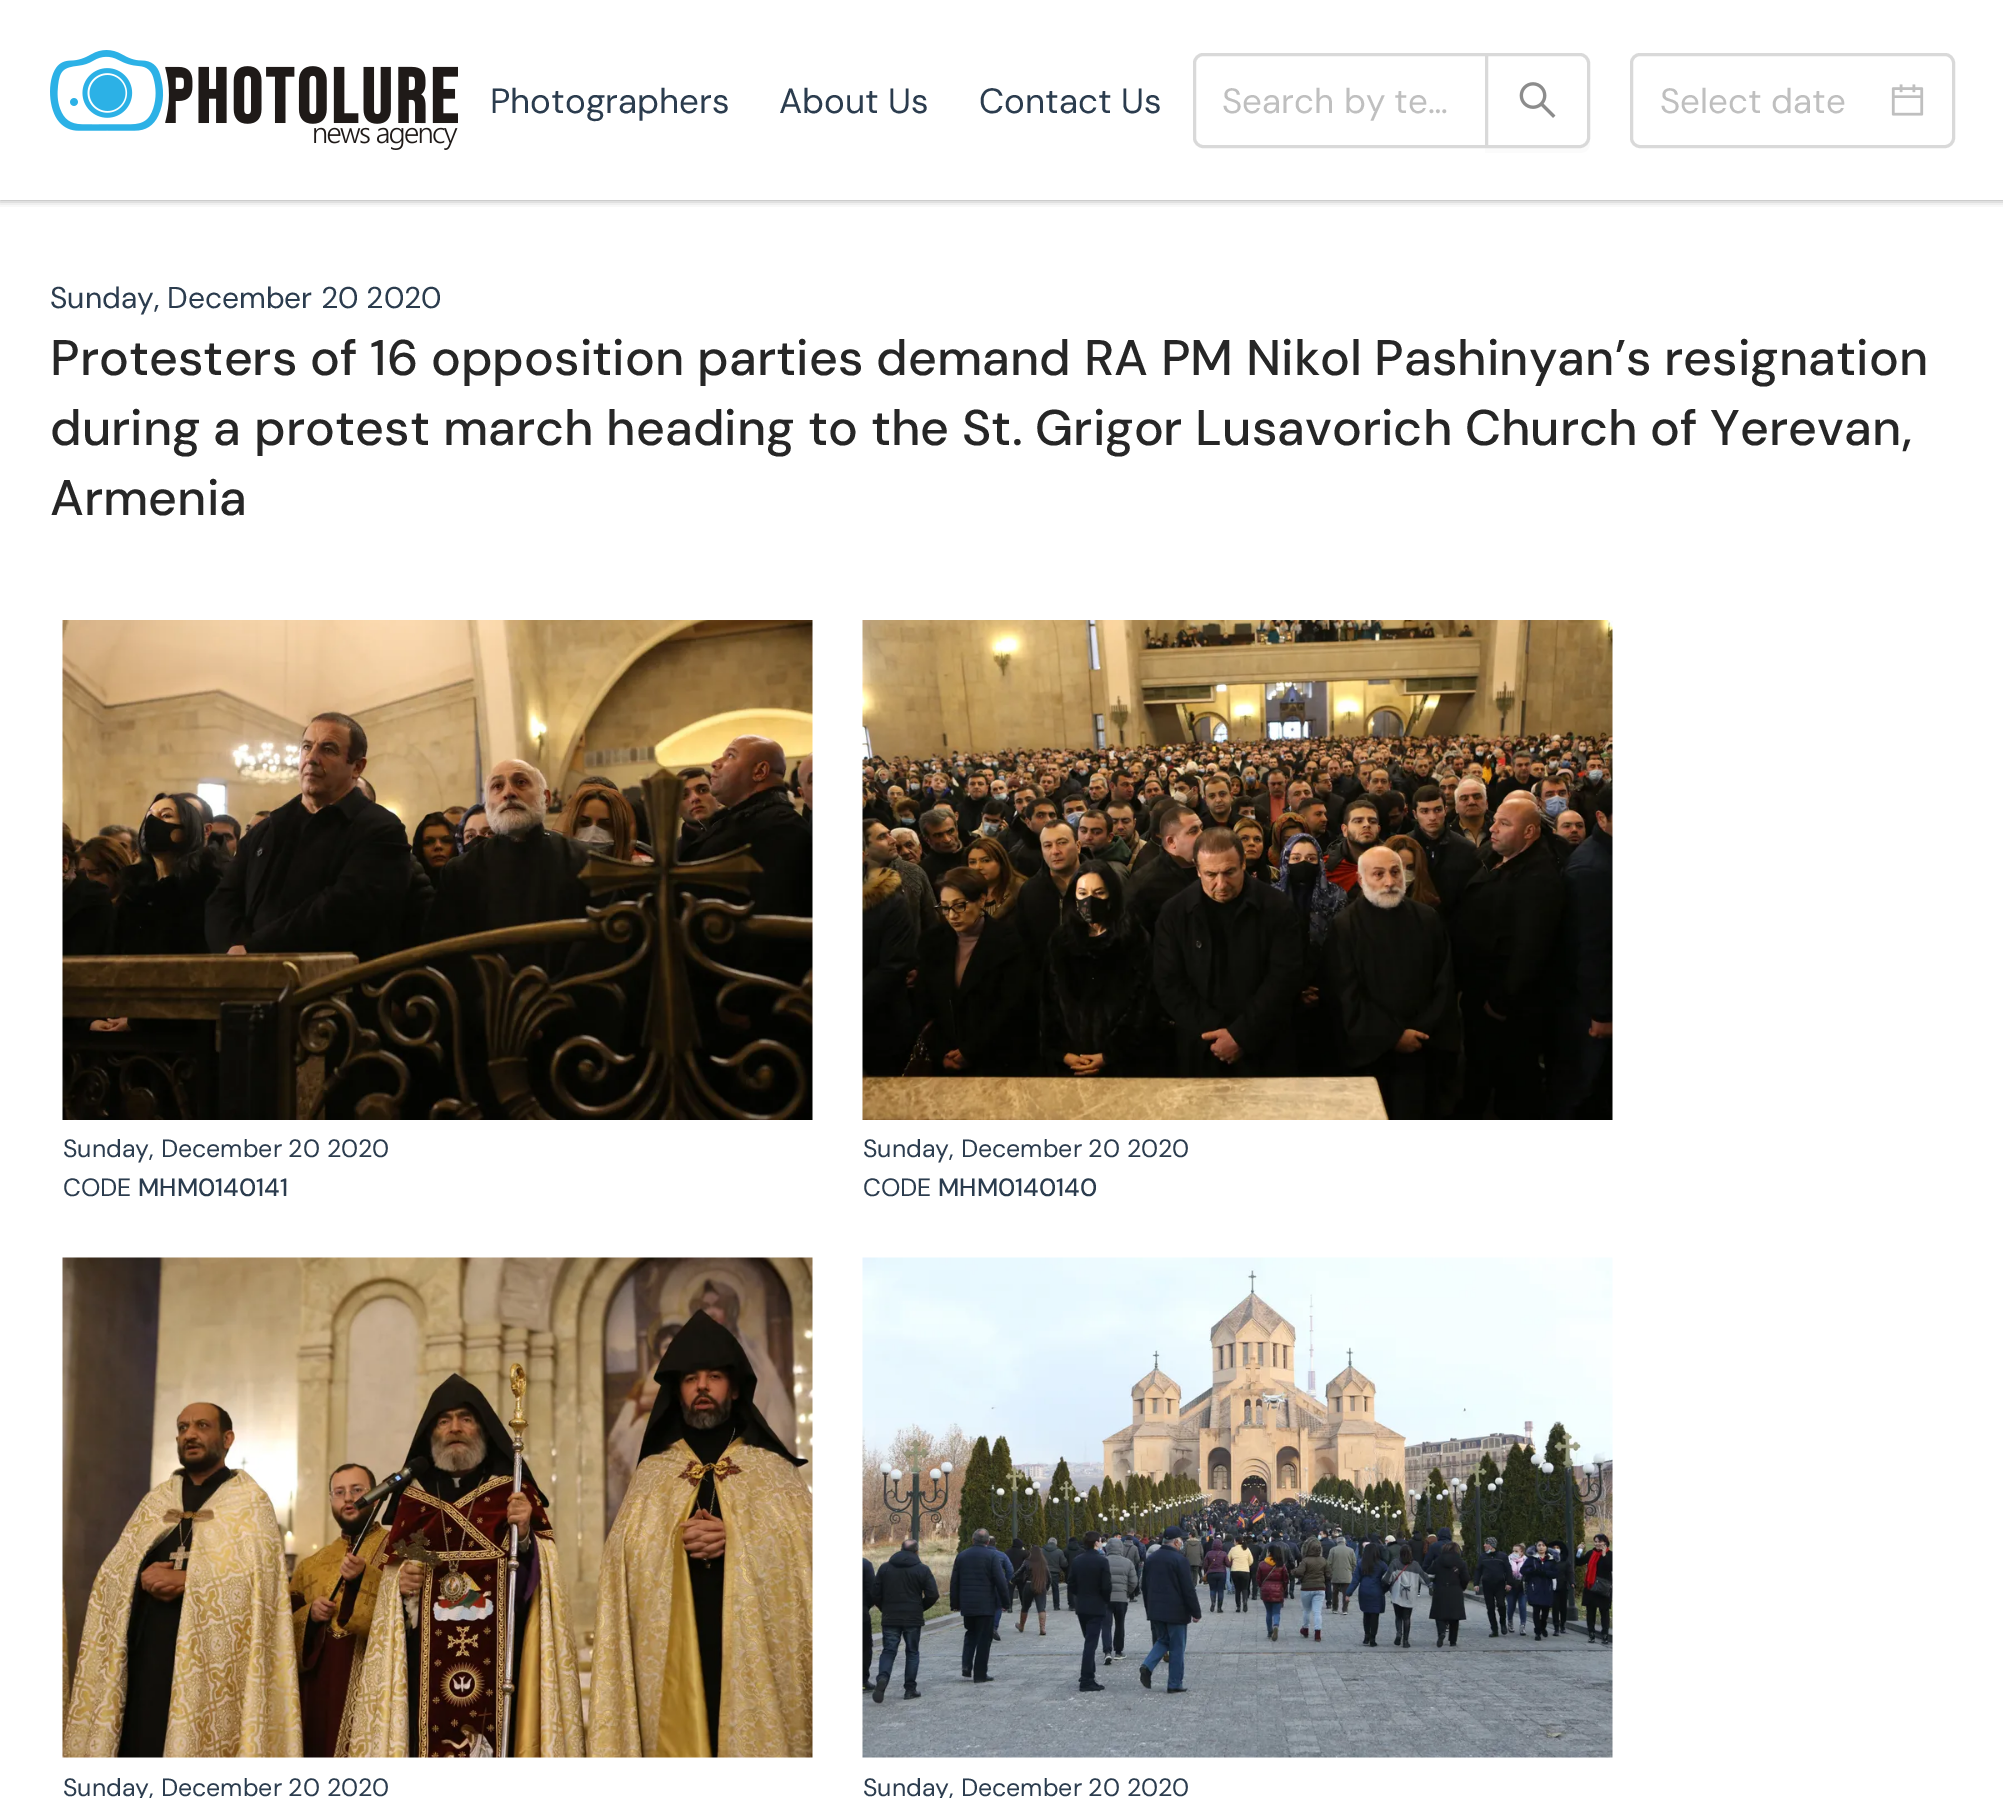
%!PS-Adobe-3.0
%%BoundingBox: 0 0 2003 1798
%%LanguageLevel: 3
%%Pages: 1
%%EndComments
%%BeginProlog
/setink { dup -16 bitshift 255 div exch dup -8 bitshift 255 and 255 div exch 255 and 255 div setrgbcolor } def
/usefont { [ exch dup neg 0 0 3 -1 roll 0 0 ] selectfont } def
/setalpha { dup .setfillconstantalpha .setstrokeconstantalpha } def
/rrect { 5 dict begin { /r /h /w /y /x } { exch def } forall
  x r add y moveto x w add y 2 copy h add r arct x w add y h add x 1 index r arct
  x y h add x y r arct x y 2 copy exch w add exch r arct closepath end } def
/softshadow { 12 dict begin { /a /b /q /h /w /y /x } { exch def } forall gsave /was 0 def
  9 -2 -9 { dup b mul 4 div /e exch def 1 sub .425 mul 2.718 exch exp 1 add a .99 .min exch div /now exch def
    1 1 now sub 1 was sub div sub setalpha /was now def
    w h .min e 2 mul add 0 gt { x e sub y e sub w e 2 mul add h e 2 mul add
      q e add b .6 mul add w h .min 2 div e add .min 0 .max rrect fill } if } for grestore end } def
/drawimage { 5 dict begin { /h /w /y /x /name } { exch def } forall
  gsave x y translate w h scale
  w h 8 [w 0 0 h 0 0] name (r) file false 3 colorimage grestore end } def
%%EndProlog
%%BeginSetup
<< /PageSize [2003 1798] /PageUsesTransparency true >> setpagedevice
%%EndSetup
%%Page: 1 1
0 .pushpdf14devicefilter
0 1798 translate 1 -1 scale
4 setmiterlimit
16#FFFFFF setink
0 0 2003 1798 rectfill
gsave
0 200 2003 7 rectclip
16#000000 setink
0 0 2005 200 0 4 0.4 softshadow
grestore
(img1.raw) 50 50 408 100 drawimage
/DMSans-Regular 35 usefont
16#2B3C4E setink
[
    [(Photographers) 490 113]
    [(About Us) 779 113]
    [(Contact Us) 979 113]
] { aload pop moveto show } forall
16#D9D9D9 setink
3 setlinewidth
1203 54.5 moveto 1486.5 54.5 lineto 1486.5 146.5 lineto 1203 146.5 lineto 1198.5 146.5 1194.5 142.5 1194.5 138 curveto 1194.5 63 lineto 1194.5 58.5 1198.5 54.5 1203 54.5 curveto closepath stroke
16#BFBFBF setink
1222 113 moveto (Search by te…) show
16#FBFBFB setink
1485 148 moveto 1485 153 lineto 1580 153 lineto 1586 153 1590 149 1590 143 curveto 1590 138 lineto 1590 143 1586 148 1580 148 curveto closepath fill
16#FFFFFF setink
1486.5 54.5 moveto 1580 54.5 lineto 1584.5 54.5 1588.5 58.5 1588.5 63 curveto 1588.5 138 lineto 1588.5 142.5 1584.5 146.5 1580 146.5 curveto 1486.5 146.5 lineto closepath gsave fill grestore
16#D9D9D9 setink
stroke
(img2.raw) 1519 82 37 36 drawimage
1631.5 54.5 322 92 8.5 rrect stroke
16#BFBFBF setink
1660 113 moveto (Select date) show
(img3.raw) 1891 84 33 32 drawimage
/DMSans-Regular 30 usefont
16#2B3C4E setink
50 308 moveto (Sunday, December 20 2020) show
/DMSans-Medium 50 usefont
16#262626 setink
[
    [(Protesters of 16 opposition parties demand RA PM Nikol Pashinyan’s resignation) 50 375]
    [(during a protest march heading to the St. Grigor Lusavorich Church of Yerevan,) 50 445]
    [(Armenia) 50 515]
] { aload pop moveto show } forall
(img4.raw) 62 620 751 500 drawimage
/DMSans-Regular 25 usefont
16#2B3C4E setink
63 1157 moveto (Sunday, December 20 2020) show
63 1196 moveto (CODE) show
/DMSans-Medium 25 usefont
138 1196 moveto (MHM0140141) show
(img5.raw) 862 620 751 500 drawimage
/DMSans-Regular 25 usefont
863 1157 moveto (Sunday, December 20 2020) show
863 1196 moveto (CODE) show
/DMSans-Medium 25 usefont
938 1196 moveto (MHM0140140) show
(img6.raw) 62 1257 751 501 drawimage
/DMSans-Regular 25 usefont
63 1796 moveto (Sunday, December 20 2020) show
(img7.raw) 862 1257 751 501 drawimage
863 1796 moveto (Sunday, December 20 2020) show
.poppdf14devicefilter showpage
%%EOF
